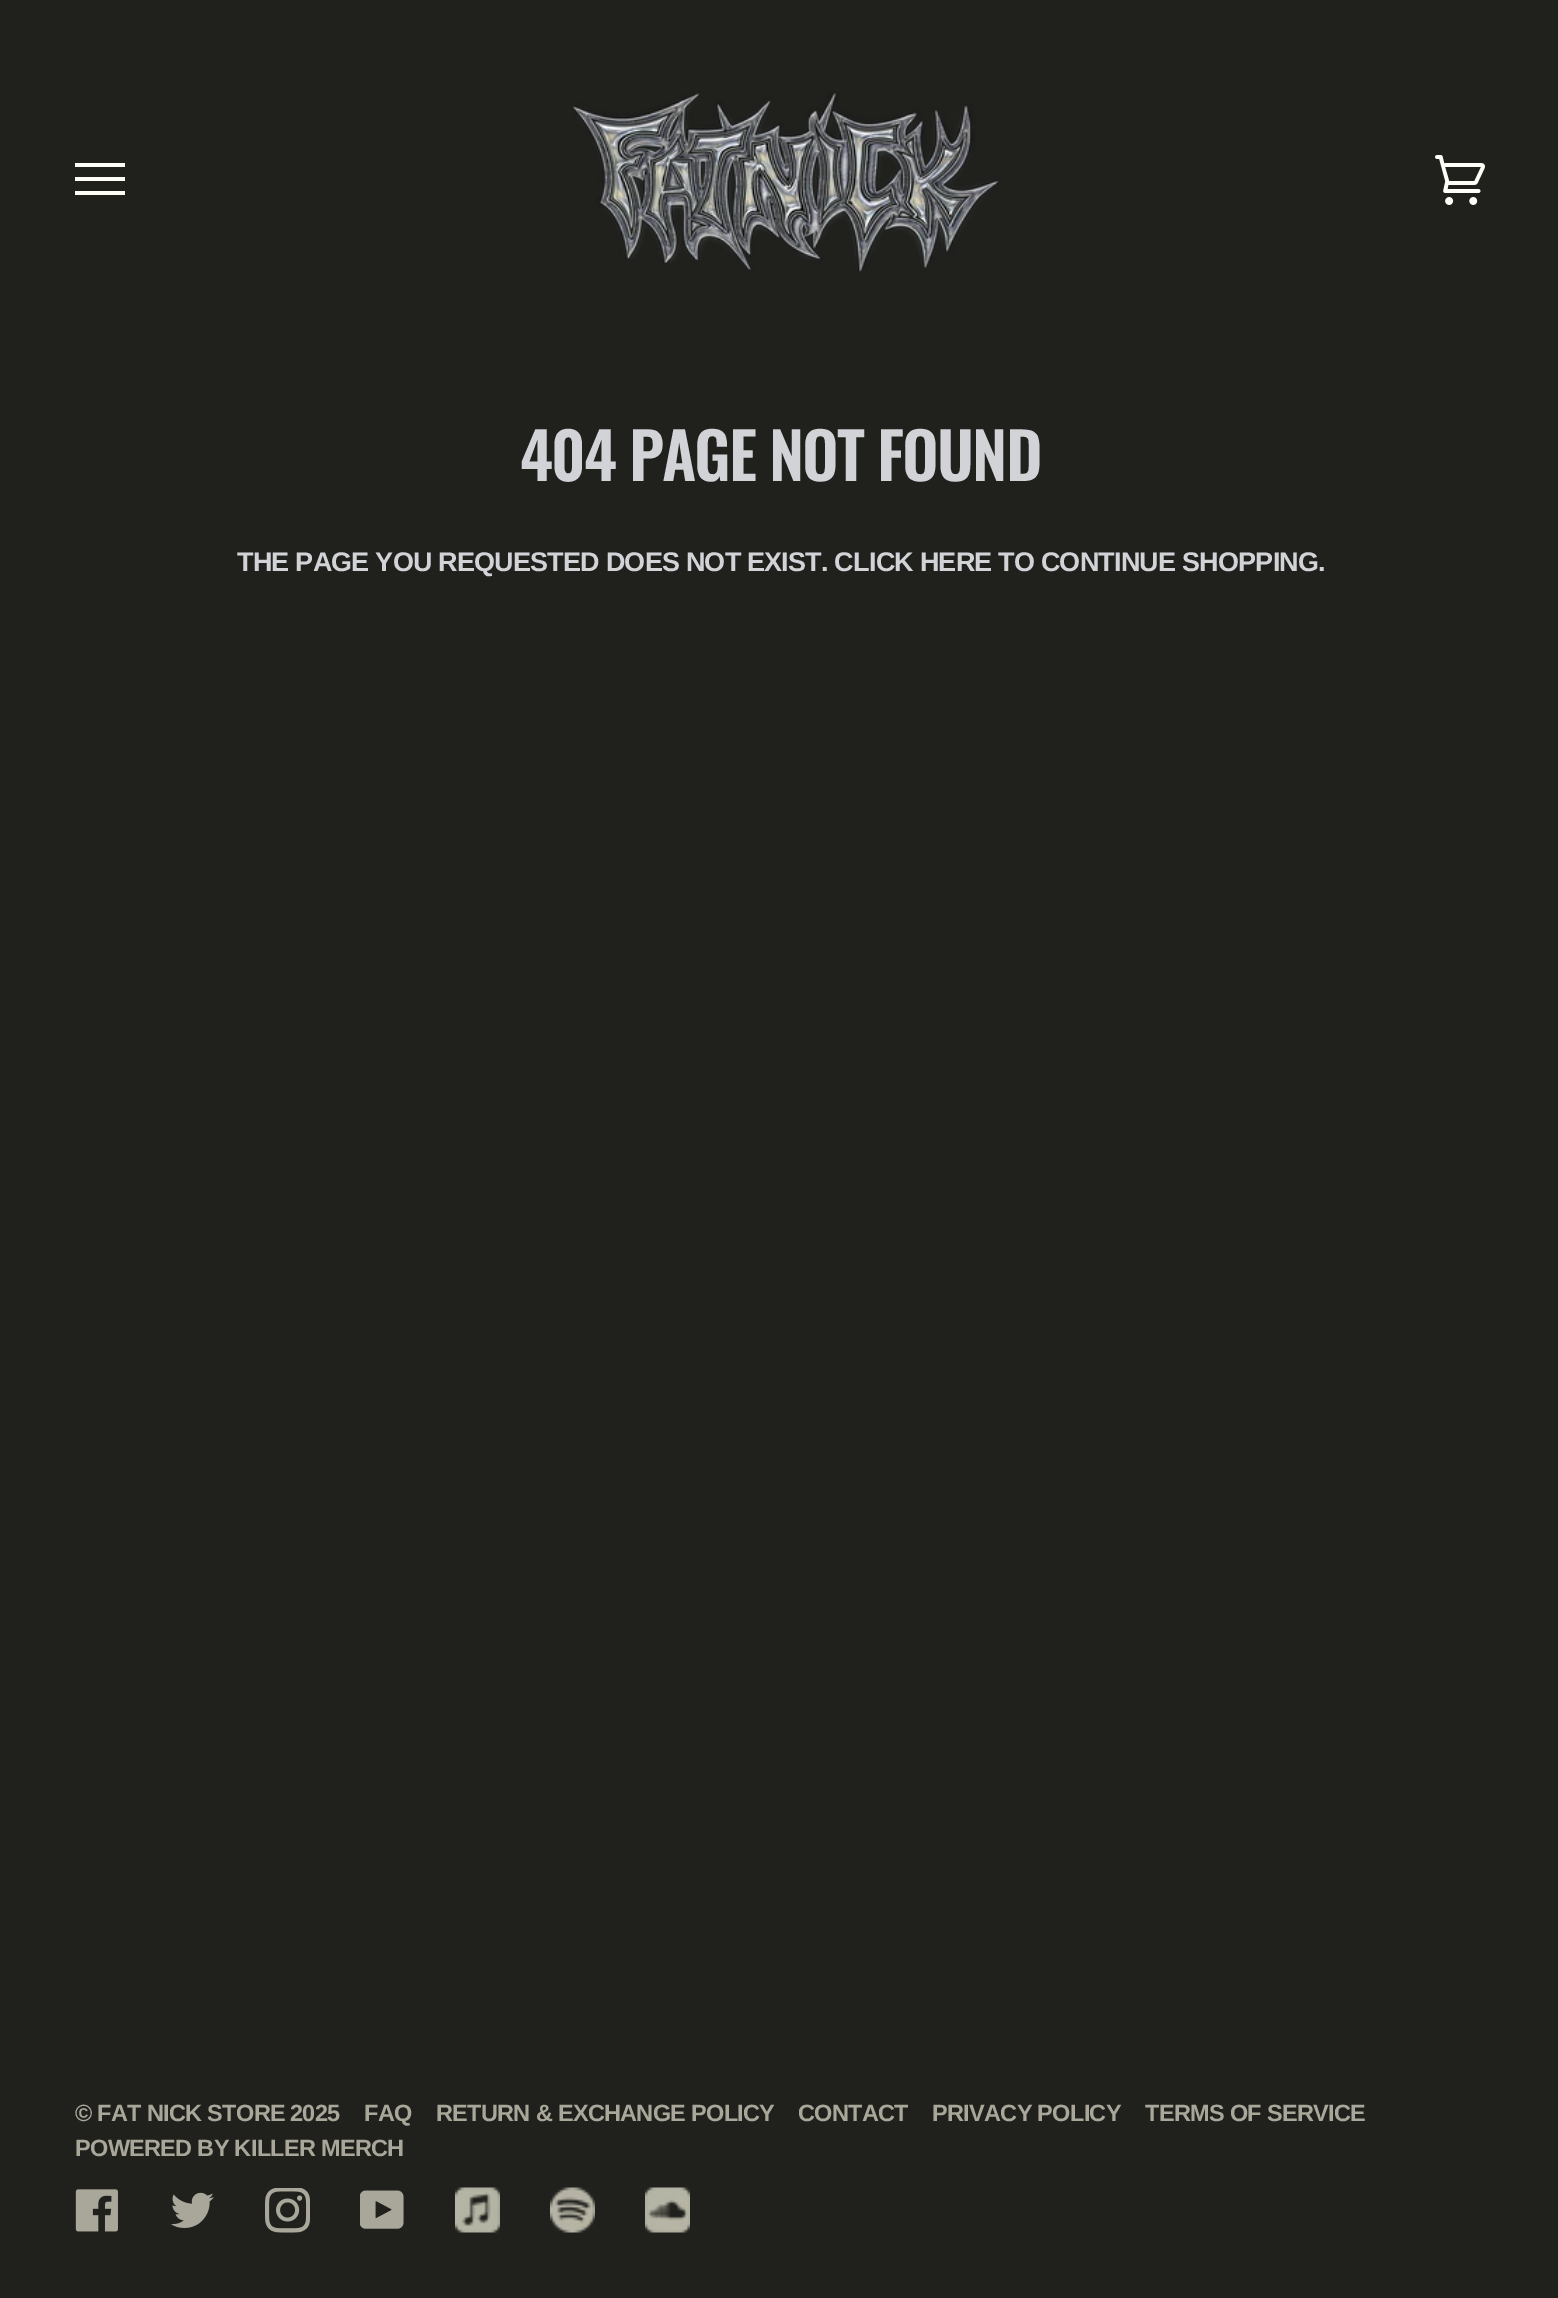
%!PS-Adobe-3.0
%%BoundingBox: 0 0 1558 2298
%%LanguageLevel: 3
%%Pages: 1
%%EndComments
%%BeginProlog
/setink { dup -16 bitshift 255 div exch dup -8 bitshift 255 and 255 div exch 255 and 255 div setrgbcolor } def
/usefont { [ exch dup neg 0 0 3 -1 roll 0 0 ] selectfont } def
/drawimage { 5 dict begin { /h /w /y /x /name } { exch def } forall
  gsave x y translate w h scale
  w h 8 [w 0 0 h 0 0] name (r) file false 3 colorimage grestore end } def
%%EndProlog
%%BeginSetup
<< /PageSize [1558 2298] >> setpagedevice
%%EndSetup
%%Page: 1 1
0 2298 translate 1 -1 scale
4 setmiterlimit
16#20201D setink
0 0 1558 2298 rectfill
16#FFFFF8 setink
75 163 moveto 125 163 lineto 125 167 lineto 75 167 lineto closepath 75 177 moveto 125 177 lineto 125 181 lineto 75 181 lineto closepath 75 191 moveto 125 191 lineto 125 195 lineto 75 195 lineto closepath fill
(img1.raw) 573 92 426 180 drawimage
(img2.raw) 1435 155 50 50 drawimage
/Oswald-SemiBold 63.75 usefont
16#D1D3D7 setink
520 481 moveto -1.9 0 (404 PAGE NOT FOUND) ashow
/LiberationSans-Bold 27 usefont
237 571 moveto -0.8 0 (THE PAGE YOU REQUESTED DOES NOT EXIST. CLICK HERE TO CONTINUE SHOPPING.) ashow
/LiberationSans-Bold 23.5 usefont
16#A8A799 setink
75 2121 moveto -0.7 0 (© FAT NICK STORE) ashow
290 2121 moveto -0.7 0 (2025) ashow
364 2121 moveto -0.7 0 (FAQ) ashow
436 2121 moveto -0.7 0 (RETURN & EXCHANGE POLICY) ashow
798 2121 moveto -0.7 0 (CONTACT) ashow
932 2121 moveto -0.7 0 (PRIVACY POLICY) ashow
1145 2121 moveto -0.7 0 (TERMS OF SERVICE) ashow
75 2156 moveto -0.7 0 (POWERED BY KILLER MERCH) ashow
(img3.raw) 75 2189 43 43 drawimage
(img4.raw) 171 2192 43 36 drawimage
(img5.raw) 265 2188 45 45 drawimage
(img6.raw) 360 2190 44 39 drawimage
(img7.raw) 455 2187 45 46 drawimage
(img8.raw) 550 2187 45 46 drawimage
(img9.raw) 645 2187 45 46 drawimage
showpage
%%EOF
